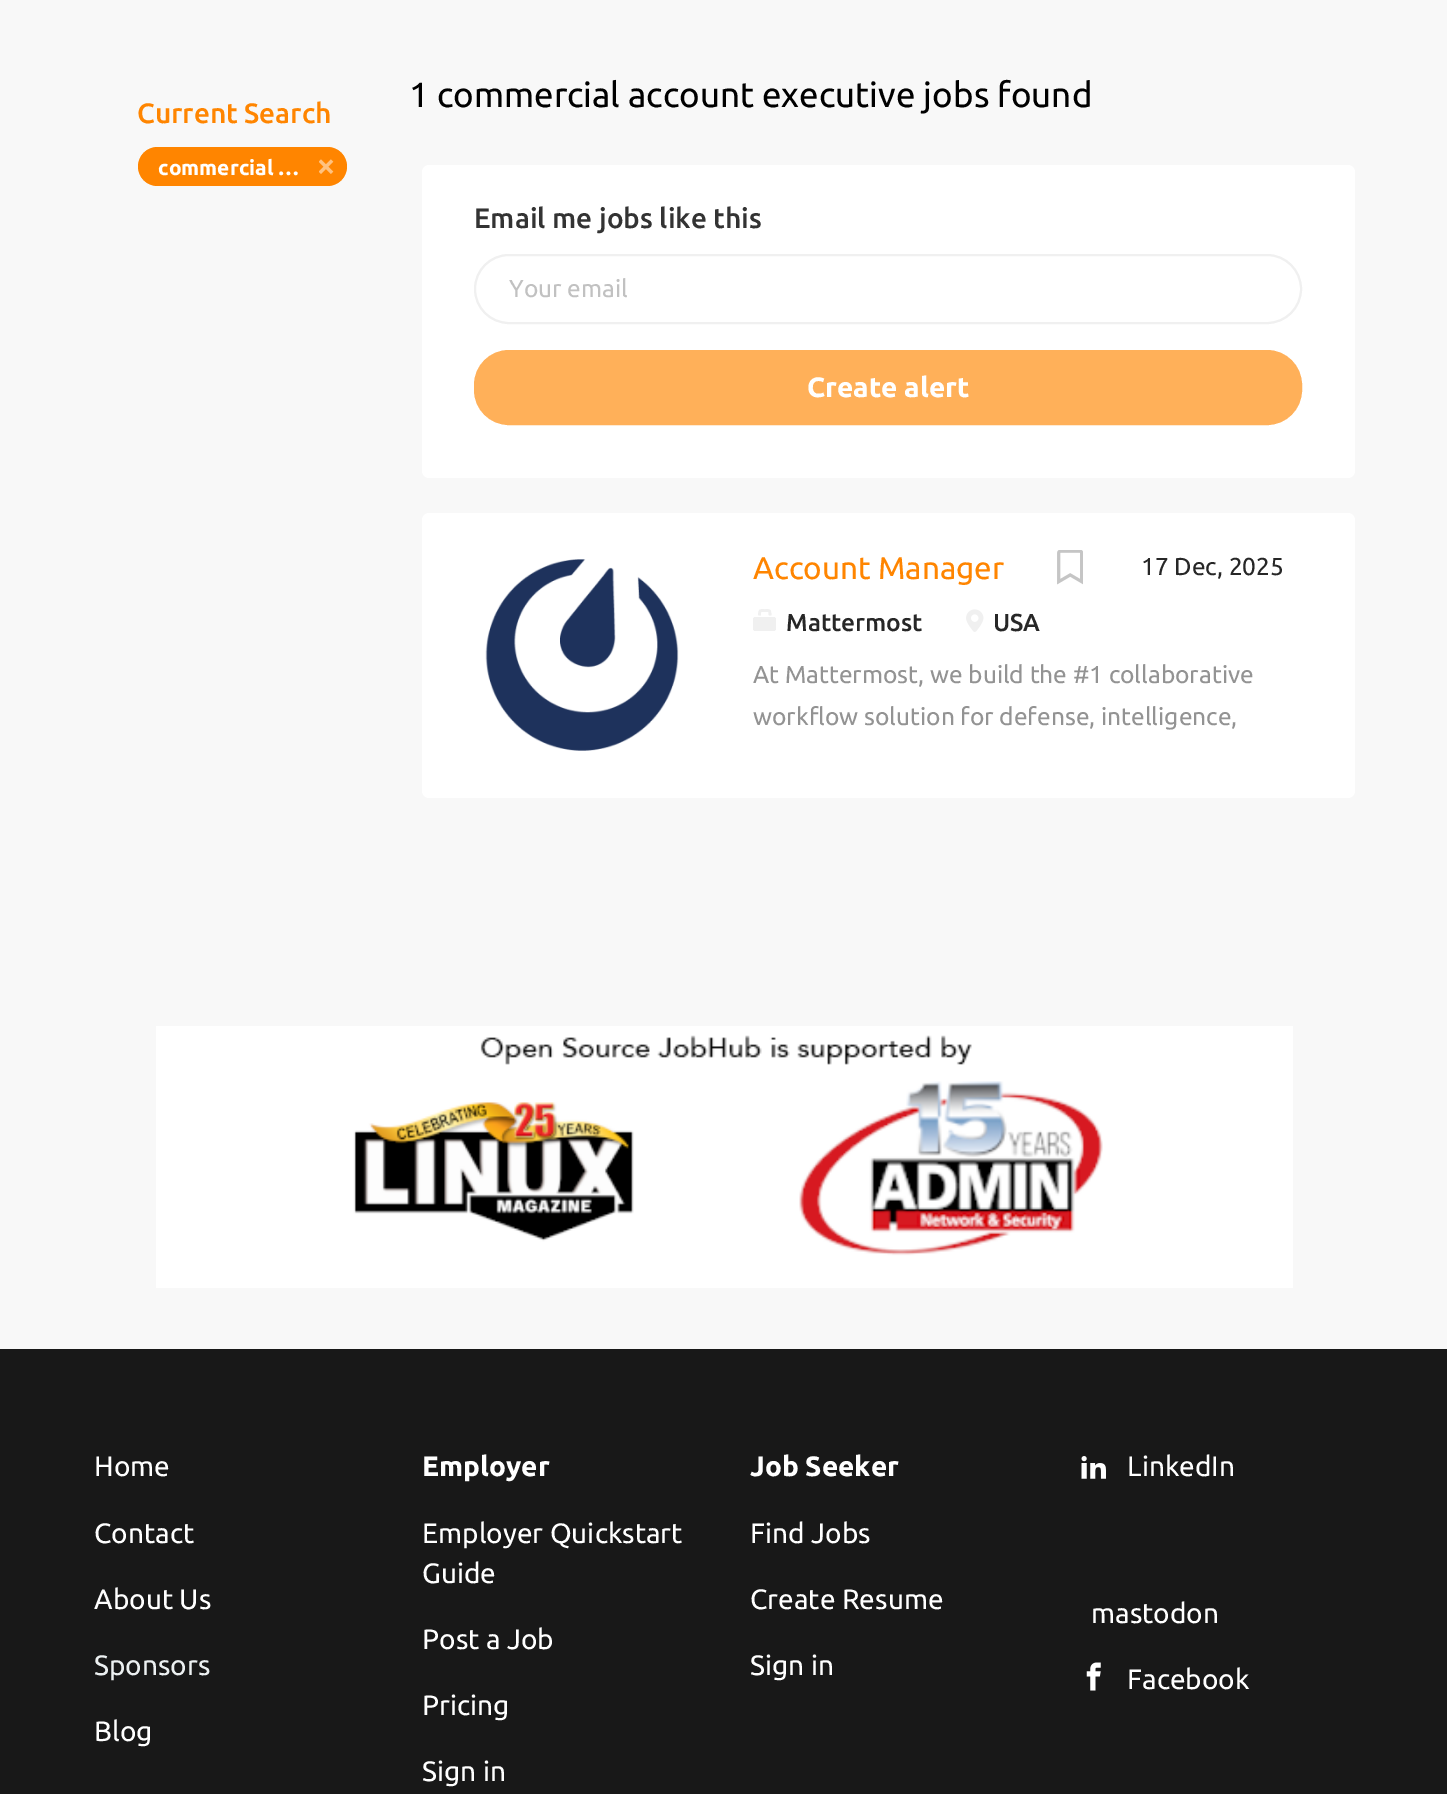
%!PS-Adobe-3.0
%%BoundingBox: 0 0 1447 1794
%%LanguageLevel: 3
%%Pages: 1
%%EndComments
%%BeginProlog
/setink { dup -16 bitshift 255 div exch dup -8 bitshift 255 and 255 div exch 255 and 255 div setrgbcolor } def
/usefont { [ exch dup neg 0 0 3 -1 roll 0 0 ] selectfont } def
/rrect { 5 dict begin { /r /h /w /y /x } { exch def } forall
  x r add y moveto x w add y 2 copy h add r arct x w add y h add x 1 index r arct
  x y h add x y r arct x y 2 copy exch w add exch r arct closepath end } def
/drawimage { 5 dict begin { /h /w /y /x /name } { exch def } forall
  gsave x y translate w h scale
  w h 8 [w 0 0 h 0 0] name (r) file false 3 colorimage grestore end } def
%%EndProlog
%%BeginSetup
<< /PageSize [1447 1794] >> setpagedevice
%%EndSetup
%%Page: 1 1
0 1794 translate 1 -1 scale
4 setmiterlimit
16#F8F8F8 setink
0 0 1447 1794 rectfill
/Ubuntu-Regular 35 usefont
16#000000 setink
409 107 moveto (1 commercial account executive jobs found) show
/Ubuntu-Medium 28 usefont
16#FF8500 setink
137 123 moveto (Current Search) show
138 147 209 39 19.5 rrect fill
/Ubuntu-Bold 21 usefont
16#FFFFFF setink
158 175 moveto (commercial …) show
(img1.raw) 319 159 15 15 drawimage
422 165 933 313 7 rrect fill
/Ubuntu-Medium 28 usefont
16#333333 setink
474 228 moveto (Email me jobs like this) show
16#F0F0F0 setink
2 setlinewidth
475 255 826 68 34 rrect stroke
/Ubuntu-Regular 24.5 usefont
16#C1C1C1 setink
509 297 moveto (Your email) show
16#FFB059 setink
475 351 826 73 34 rrect gsave fill grestore
stroke
/Ubuntu-Bold 28 usefont
16#FFFFFF setink
807 397 moveto (Create alert) show
422 513 933 285 7 rrect fill
(img2.raw) 485 559 194 192 drawimage
/Ubuntu-Regular 31.5 usefont
16#FF8500 setink
753 579 moveto (Account Manager) show
(img3.raw) 1057 550 26 35 drawimage
/Ubuntu-Regular 24.5 usefont
16#272727 setink
1141 575 moveto (17 Dec, 2025) show
16#F0F0F0 setink
753 617 23 14 2.5 rrect fill
2.6 setlinewidth
759.5 615.5 moveto 759.5 610 759.5 610.5 765 610.5 curveto 770 610.5 770 610 770 615.5 curveto stroke
/Ubuntu-Medium 24.5 usefont
16#272727 setink
786 631 moveto (Mattermost) show
(img4.raw) 966 609 18 23 drawimage
993 631 moveto (USA) show
/Ubuntu-Regular 24.5 usefont
16#939393 setink
753 683 moveto (At Mattermost, we build the #1 collaborative) show
753 725 moveto (workflow solution for defense, intelligence,) show
(img5.raw) 156 1026 1137 262 drawimage
16#181818 setink
0 1349 1447 445 rectfill
/Ubuntu-Regular 28 usefont
16#FFFFFF setink
[
    [(Home) 94 1476]
    [(Contact) 94 1543]
    [(About Us) 94 1609]
] { aload pop moveto show } forall
16#ECF0F1 setink
94 1675 moveto (Sponsors) show
16#FFFFFF setink
94 1741 moveto (Blog) show
/Ubuntu-Bold 28 usefont
422 1476 moveto (Employer) show
/Ubuntu-Regular 28 usefont
[
    [(Employer Quickstart) 422 1543]
    [(Guide) 422 1583]
    [(Post a Job) 422 1649]
    [(Pricing) 422 1715]
    [(Sign in) 422 1781]
] { aload pop moveto show } forall
/Ubuntu-Bold 28 usefont
750 1476 moveto (Job Seeker) show
/Ubuntu-Regular 28 usefont
[
    [(Find Jobs) 750 1543]
    [(Create Resume) 750 1609]
    [(Sign in) 750 1675]
] { aload pop moveto show } forall
(img6.raw) 1081 1456 25 23 drawimage
1127 1476 moveto (LinkedIn) show
1091 1623 moveto (mastodon) show
(img7.raw) 1086 1662 15 29 drawimage
1127 1689 moveto (Facebook) show
showpage
%%EOF
